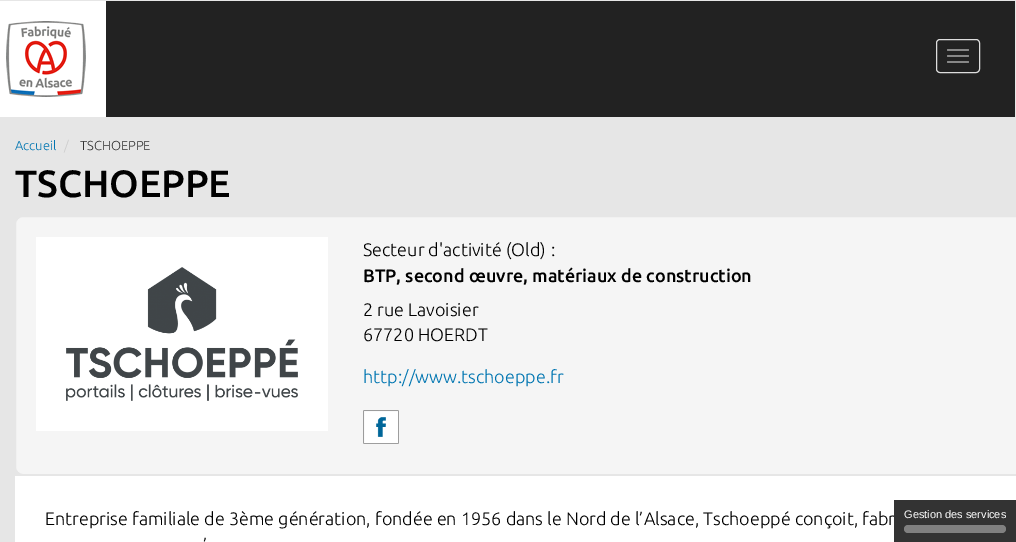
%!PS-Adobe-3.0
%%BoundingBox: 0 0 1016 542
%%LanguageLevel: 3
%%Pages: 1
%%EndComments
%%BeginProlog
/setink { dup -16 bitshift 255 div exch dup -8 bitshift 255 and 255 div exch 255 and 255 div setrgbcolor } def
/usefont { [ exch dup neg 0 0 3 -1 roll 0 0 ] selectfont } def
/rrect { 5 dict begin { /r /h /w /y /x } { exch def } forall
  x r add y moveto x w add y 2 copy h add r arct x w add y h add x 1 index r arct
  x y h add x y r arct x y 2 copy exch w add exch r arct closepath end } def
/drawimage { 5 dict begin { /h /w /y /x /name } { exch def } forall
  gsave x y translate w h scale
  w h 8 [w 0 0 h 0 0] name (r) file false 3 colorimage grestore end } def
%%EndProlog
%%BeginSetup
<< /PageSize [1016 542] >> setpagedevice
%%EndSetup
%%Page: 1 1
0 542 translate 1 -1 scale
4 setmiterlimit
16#E6E6E6 setink
0 0 1016 542 rectfill
16#222222 setink
106 1 909 116 rectfill
16#FFFFFF setink
0 1 106 116 rectfill
(img1.raw) 6 21 80 76 drawimage
16#DDDDDD setink
936.5 39.5 43 33 3.5 rrect stroke
16#888888 setink
947 49 22 2 1 rrect fill
947 55 22 2 1 rrect fill
947 61 22 2 1 rrect fill
/Ubuntu-Light 13 usefont
16#0075B1 setink
15 150 moveto (Accueil) show
16#CCCCCC setink
64 150 moveto (/) show
16#333333 setink
80 150 moveto (TSCHOEPPE) show
/Ubuntu-Medium 38 usefont
16#000000 setink
15 197 moveto (TSCHOEPPE) show
16#F5F5F5 setink
15.5 216.5 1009 258 7.5 rrect gsave fill grestore
16#E6E6E6 setink
stroke
16#FFFFFF setink
36 237 292 194 rectfill
(img2.raw) 66 267 232 134 drawimage
/Ubuntu-Light 18 usefont
16#000000 setink
363 256 moveto (Secteur d'activité \(Old\)) show
551 256 moveto (:) show
/Ubuntu-Medium 18 usefont
363 282 moveto (BTP, second œuvre, matériaux de construction) show
/Ubuntu-Light 18 usefont
363 316 moveto (2 rue Lavoisier) show
363 341 moveto (67720 HOERDT) show
16#0075B1 setink
363 383 moveto (http://www.tschoeppe.fr) show
(img3.raw) 363 410 36 34 drawimage
16#FFFFFF setink
15 476 1001 66 rectfill
16#000000 setink
45 525 moveto (Entreprise familiale de 3ème génération, fondée en 1956 dans le Nord de l’Alsace, Tschoeppé conçoit, fabr) show
203 551 moveto (’) show
16#333333 setink
894 500 122 42 rectfill
/LiberationSans-Regular 11 usefont
16#FFFFFF setink
904 518 moveto (Gestion des services) show
16#808080 setink
904 525 102 8 4 rrect fill
showpage
%%EOF
